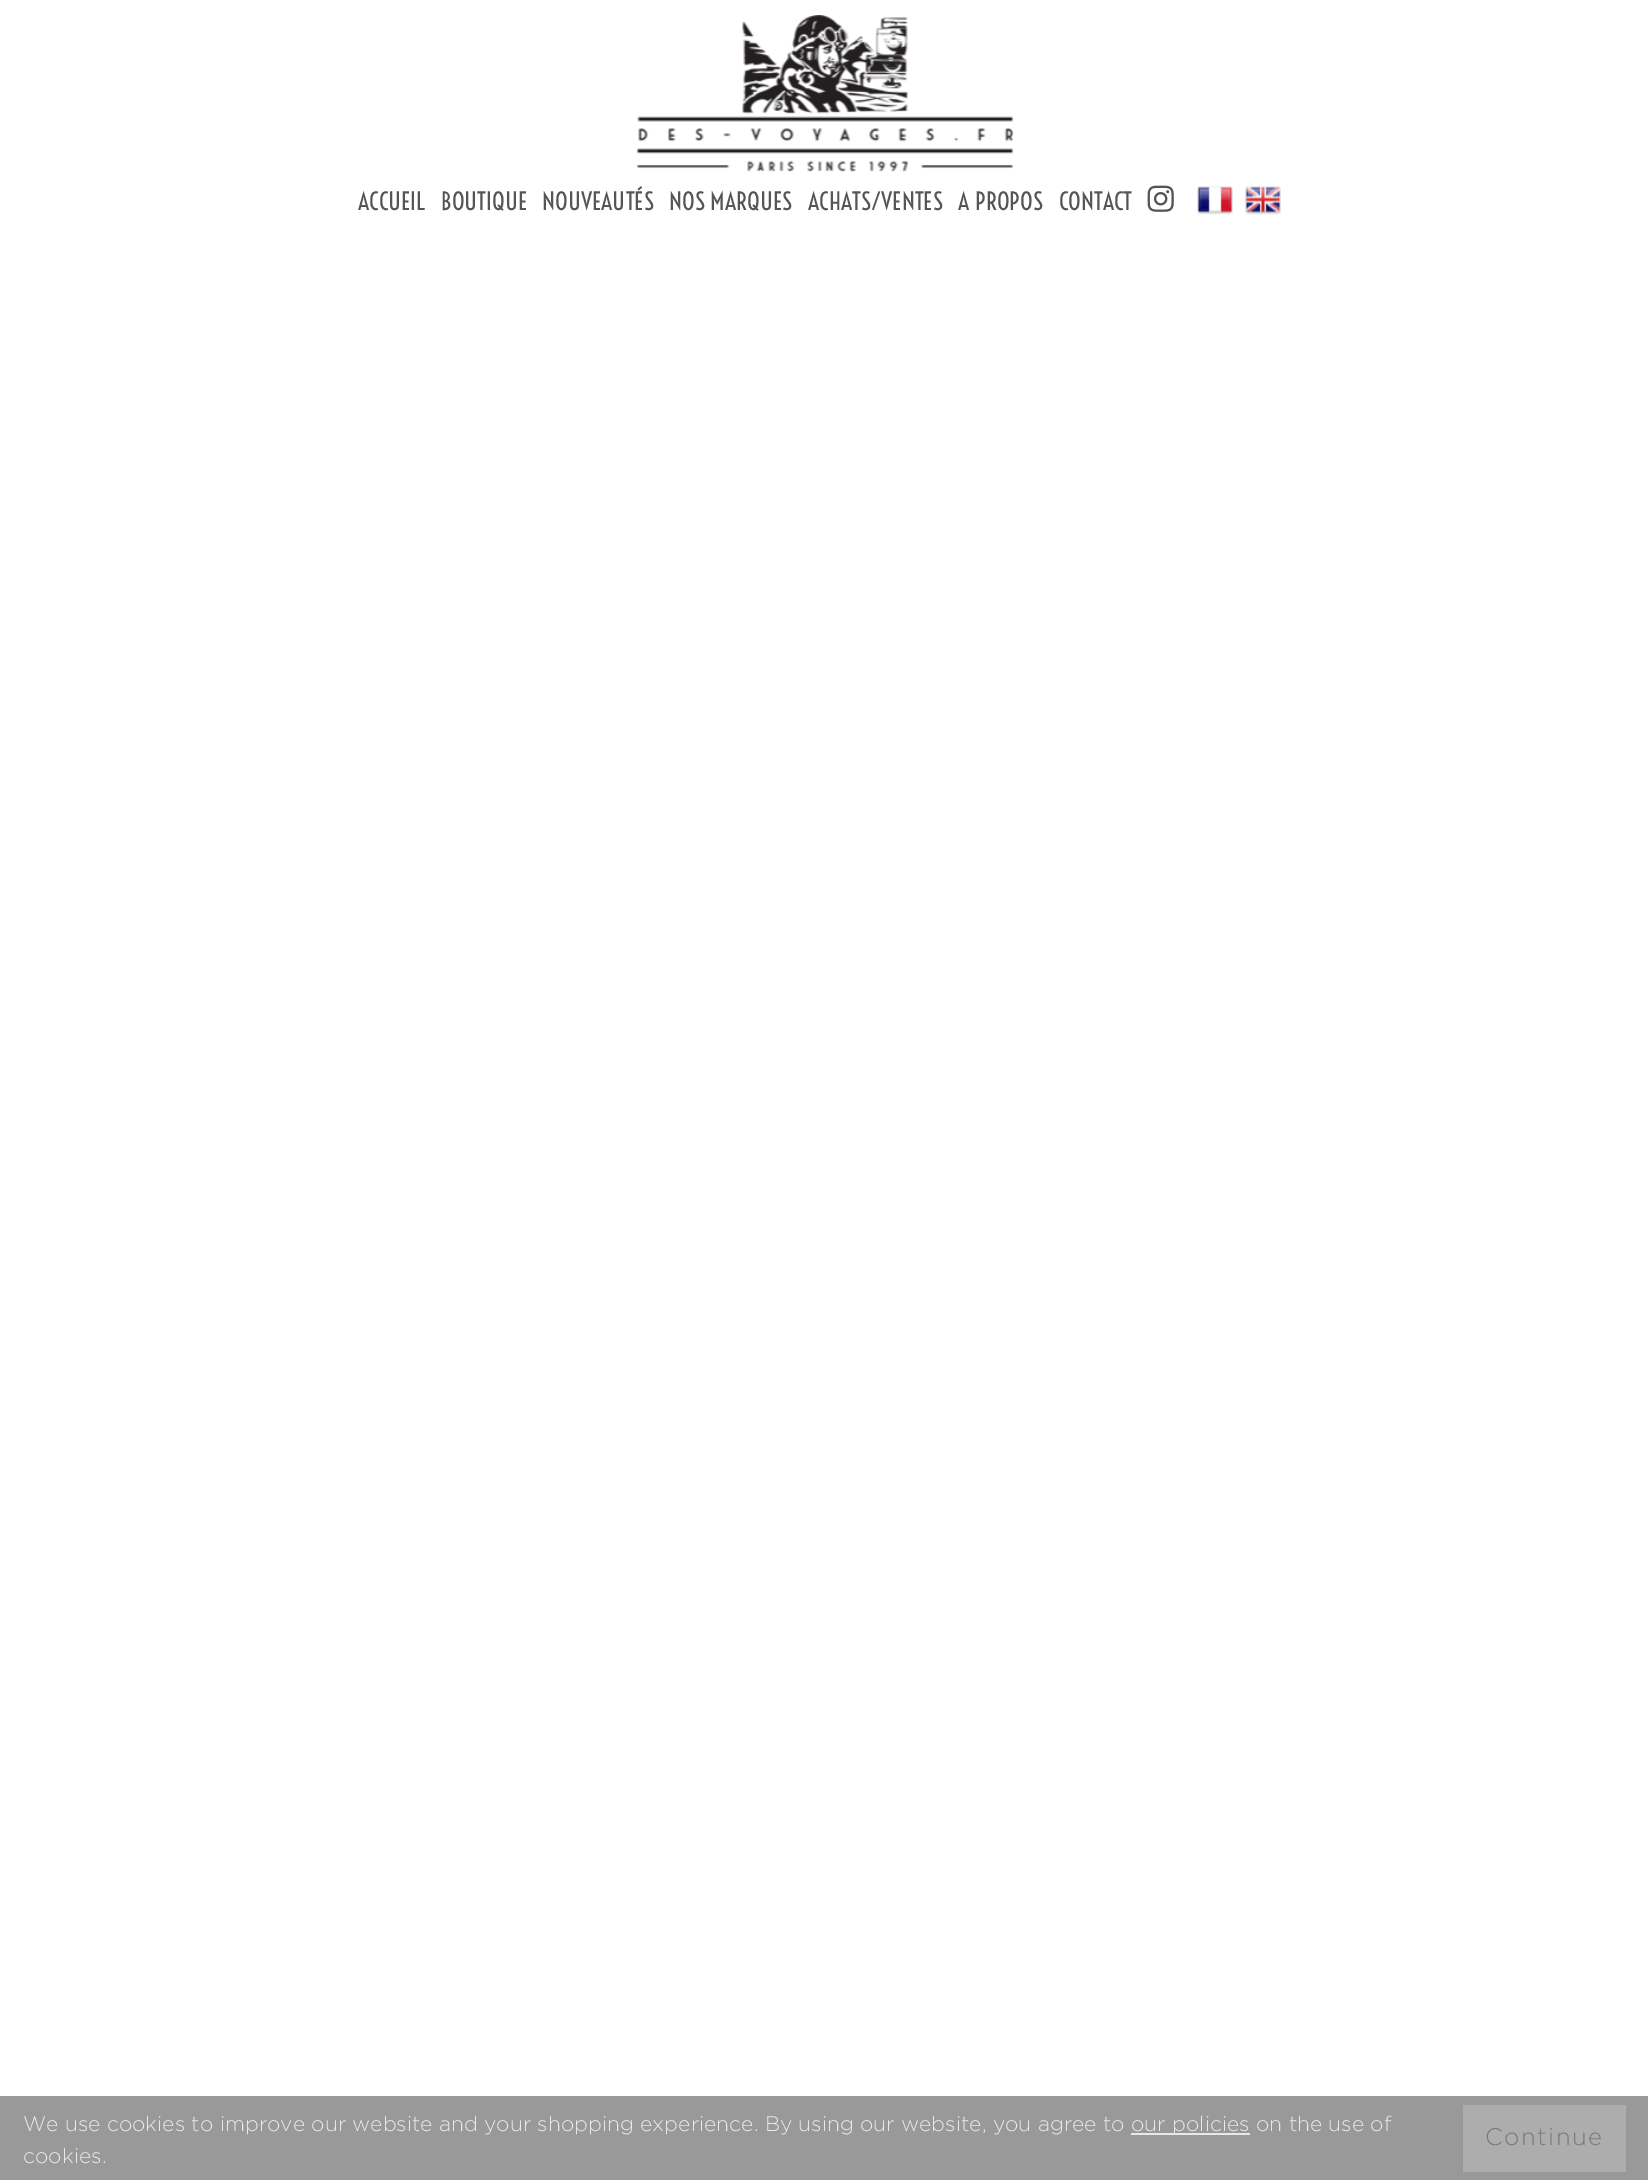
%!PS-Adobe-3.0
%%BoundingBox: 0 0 1648 2180
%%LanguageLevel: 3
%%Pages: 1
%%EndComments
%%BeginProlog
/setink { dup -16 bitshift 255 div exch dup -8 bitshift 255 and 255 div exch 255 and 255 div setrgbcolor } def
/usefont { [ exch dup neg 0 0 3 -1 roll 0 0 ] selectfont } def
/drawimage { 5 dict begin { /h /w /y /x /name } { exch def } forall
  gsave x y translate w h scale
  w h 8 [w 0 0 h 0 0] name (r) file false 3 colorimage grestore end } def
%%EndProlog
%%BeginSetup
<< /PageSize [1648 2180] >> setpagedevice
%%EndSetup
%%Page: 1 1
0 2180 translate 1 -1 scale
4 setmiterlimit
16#FFFFFF setink
0 0 1648 2180 rectfill
(img1.raw) 637 15 376 157 drawimage
/Voltaire-Regular 24 usefont
16#555555 setink
[
    [(ACCUEIL) 358 210]
    [(BOUTIQUE) 441 210]
    [(NOUVEAUTÉS) 542 210]
    [(NOS MARQUES) 669 210]
    [(ACHATS/VENTES) 808 210]
    [(A PROPOS) 958 210]
    [(CONTACT) 1059 210]
] { aload pop moveto show } forall
(img2.raw) 1147 185 27 27 drawimage
(img3.raw) 1197 186 36 29 drawimage
(img4.raw) 1245 186 36 29 drawimage
16#999999 setink
0 2096 1648 84 rectfill
/Gotham-Light 21 usefont
16#ECE8E4 setink
23 2131 moveto (We use cookies to improve our website and your shopping experience. By using our website, you agree to) show
1131 2133 119 2 rectfill
1131 2131 moveto (our policies on the use of) show
23 2163 moveto (cookies.) show
16#ADADAD setink
1463 2105 163 67 rectfill
/Gotham-Light 24 usefont
16#7A7A7A setink
1485 2145 moveto 1.5 0 (Continue) ashow
showpage
%%EOF
